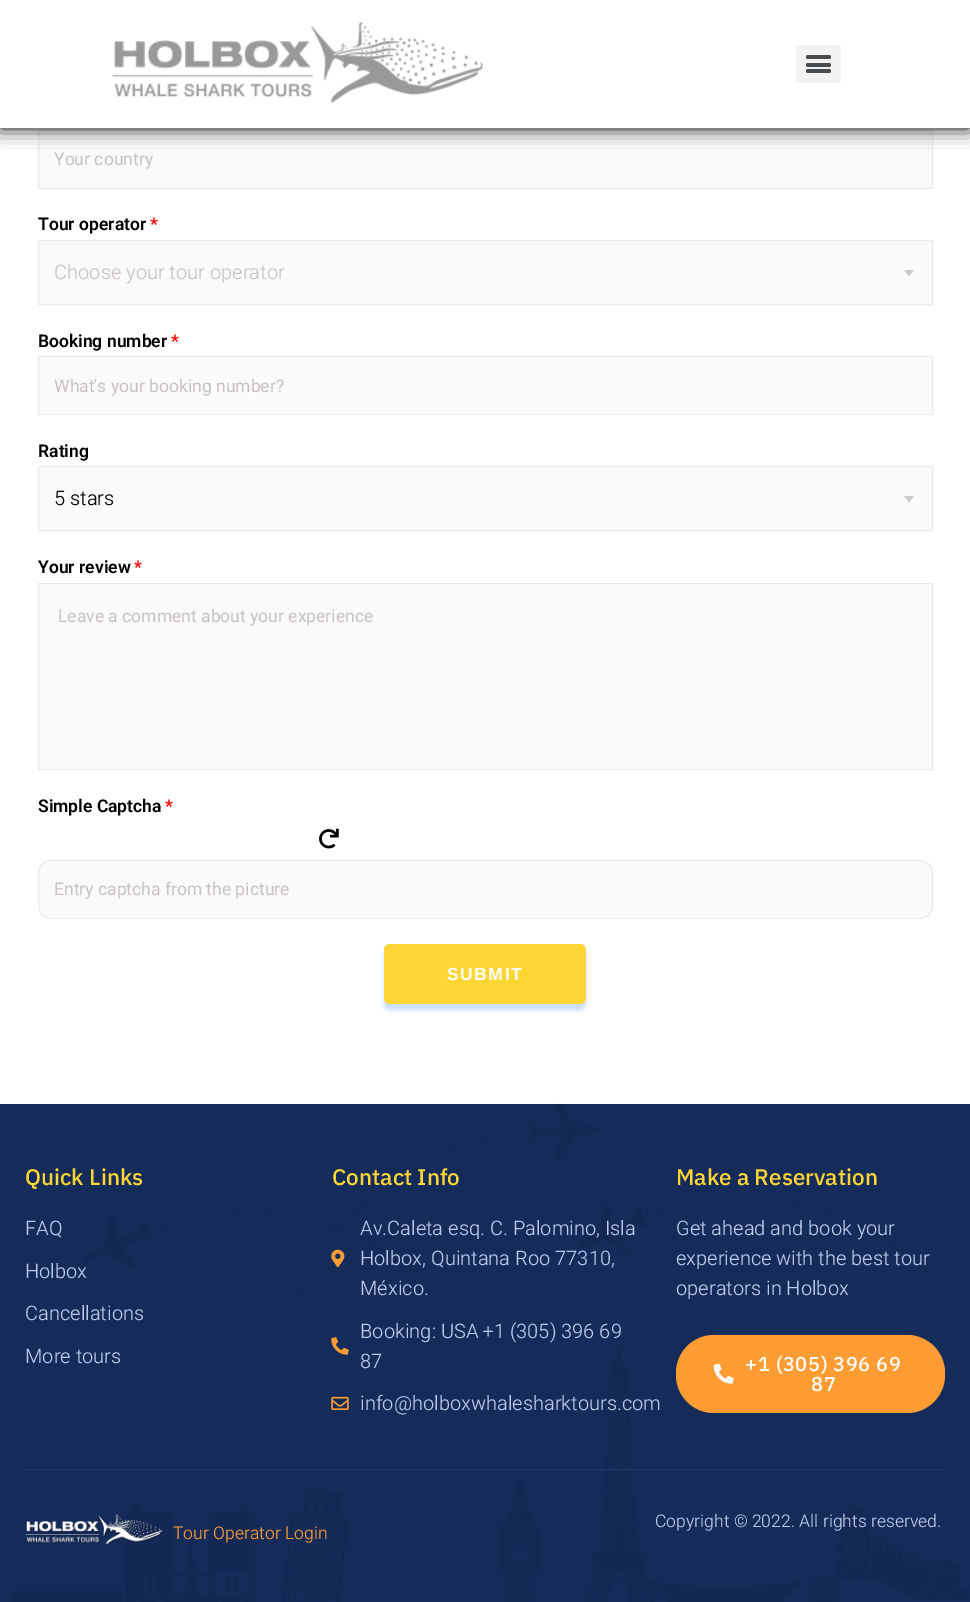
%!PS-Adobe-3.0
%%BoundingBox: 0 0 970 1602
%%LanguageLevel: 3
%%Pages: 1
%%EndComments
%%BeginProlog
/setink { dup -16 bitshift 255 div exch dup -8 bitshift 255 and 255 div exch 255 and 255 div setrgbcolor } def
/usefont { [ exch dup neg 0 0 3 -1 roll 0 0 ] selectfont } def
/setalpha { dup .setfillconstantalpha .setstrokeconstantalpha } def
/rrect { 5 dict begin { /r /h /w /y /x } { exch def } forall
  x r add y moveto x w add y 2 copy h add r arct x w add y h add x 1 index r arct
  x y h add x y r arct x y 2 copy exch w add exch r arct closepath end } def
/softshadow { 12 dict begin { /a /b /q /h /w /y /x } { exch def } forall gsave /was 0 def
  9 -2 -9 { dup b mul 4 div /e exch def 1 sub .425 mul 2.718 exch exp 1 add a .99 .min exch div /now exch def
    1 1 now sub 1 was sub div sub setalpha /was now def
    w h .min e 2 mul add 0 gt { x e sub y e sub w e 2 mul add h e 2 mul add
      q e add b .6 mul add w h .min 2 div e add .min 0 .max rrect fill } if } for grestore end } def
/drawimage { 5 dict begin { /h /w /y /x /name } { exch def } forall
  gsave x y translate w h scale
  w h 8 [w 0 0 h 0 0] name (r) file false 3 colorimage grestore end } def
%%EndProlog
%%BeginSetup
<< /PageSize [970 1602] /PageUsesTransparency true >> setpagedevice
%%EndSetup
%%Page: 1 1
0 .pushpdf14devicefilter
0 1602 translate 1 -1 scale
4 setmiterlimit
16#FFFFFF setink
0 0 970 1602 rectfill
16#FAFAFA setink
38.5 130.5 moveto 932.5 130.5 lineto 932.5 188.5 lineto 38.5 188.5 lineto closepath gsave fill grestore
16#E7EBF0 setink
stroke
16#000000 setink
0 0 970 128 0 9.5 1 softshadow
16#FFFFFF setink
0 0 970 128 rectfill
(img1.raw) 112 22 371 81 drawimage
16#F2F2F2 setink
796 45 45 38 4 rrect fill
16#494C4F setink
806 63 25 4 2 rrect fill
806 55 25 4 2 rrect fill
806 69 25 4 2 rrect fill
/Heebo-Regular 17.5 usefont
16#C9C1C1 setink
54 165 moveto (Your country) show
/Roboto-SemiBold 17.5 usefont
16#000000 setink
38 230 moveto (Tour operator) show
16#FF0000 setink
150 230 moveto (*) show
16#FAFAFA setink
38.5 240.5 moveto 932.5 240.5 lineto 932.5 304.5 lineto 38.5 304.5 lineto closepath gsave fill grestore
16#EAEAEA setink
stroke
/Heebo-Light 20 usefont
16#C9C1C1 setink
54 279 moveto (Choose your tour operator) show
16#CCCCCC setink
904 270 moveto 914 270 lineto 909 276 lineto closepath fill
/Roboto-SemiBold 17.5 usefont
16#000000 setink
38 347 moveto (Booking number) show
16#FF0000 setink
171 347 moveto (*) show
16#FAFAFA setink
38.5 356.5 moveto 932.5 356.5 lineto 932.5 414.5 lineto 38.5 414.5 lineto closepath gsave fill grestore
16#E7EBF0 setink
stroke
/Heebo-Regular 17.5 usefont
16#C9C1C1 setink
54 392 moveto (What's your booking number?) show
/Roboto-SemiBold 17.5 usefont
16#000000 setink
38 457 moveto (Rating) show
16#FAFAFA setink
38.5 466.5 moveto 932.5 466.5 lineto 932.5 530.5 lineto 38.5 530.5 lineto closepath gsave fill grestore
16#EAEAEA setink
stroke
/Heebo-Light 20 usefont
16#000000 setink
54 505 moveto (5 stars) show
16#CCCCCC setink
904 496 moveto 914 496 lineto 909 502.5 lineto closepath fill
/Roboto-SemiBold 17.5 usefont
16#000000 setink
38 573 moveto (Your review) show
16#FF0000 setink
134 573 moveto (*) show
16#FAFAFA setink
38.5 583.5 moveto 932.5 583.5 lineto 932.5 769.5 lineto 38.5 769.5 lineto closepath gsave fill grestore
16#EAEAEA setink
stroke
/Heebo-Regular 17.5 usefont
16#C9C1C1 setink
58 622 moveto (Leave a comment about your experience) show
/Roboto-SemiBold 17.5 usefont
16#000000 setink
38 812 moveto (Simple Captcha) show
16#FF0000 setink
165 812 moveto (*) show
(img2.raw) 319 828 20 21 drawimage
16#FAFAFA setink
38.5 860.5 894 58 12.5 rrect gsave fill grestore
16#E7EBF0 setink
stroke
/Heebo-Regular 17.5 usefont
16#C9C1C1 setink
54 895 moveto (Entry captcha from the picture) show
16#4285F4 setink
384 950 202 60 6 3 0.3 softshadow
16#FFD634 setink
384 944 202 60 6 rrect fill
/LiberationSans-Bold 17.5 usefont
16#FFFFFF setink
447 980 moveto 1.5 0 (SUBMIT) ashow
16#152B5A setink
0 1104 970 498 rectfill
(img3.raw) 11 1103 958 499 drawimage
/IBMPlexSans-Medium 22.5 usefont
16#FFD634 setink
25 1185 moveto (Quick Links) show
/Heebo-Light 20 usefont
16#BBCAEA setink
[
    [(FAQ) 25 1235]
    [(Holbox) 25 1278]
    [(Cancellations) 25 1320]
    [(More tours) 25 1363]
] { aload pop moveto show } forall
/IBMPlexSans-Medium 22.5 usefont
16#FFD634 setink
332 1185 moveto (Contact Info) show
(img4.raw) 331 1249 14 19 drawimage
/Heebo-Light 20 usefont
16#BBCAEA setink
[
    [(Av.Caleta esq. C. Palomino, Isla) 360 1235]
    [(Holbox, Quintana Roo 77310,) 360 1265]
    [(México.) 360 1295]
] { aload pop moveto show } forall
(img5.raw) 331 1337 18 18 drawimage
360 1338 moveto (Booking: USA +1 \(305\) 396 69) show
360 1368 moveto (87) show
(img6.raw) 331 1396 18 14 drawimage
360 1410 moveto (info@holboxwhalesharktours.com) show
/IBMPlexSans-Medium 22.5 usefont
16#FFD634 setink
676 1185 moveto (Make a Reservation) show
/Heebo-Light 20 usefont
16#BBCAEA setink
[
    [(Get ahead and book your) 676 1235]
    [(experience with the best tour) 676 1265]
    [(operators in Holbox) 676 1295]
] { aload pop moveto show } forall
16#FF9C34 setink
676 1335 269 78 38 rrect fill
(img7.raw) 713 1363 21 21 drawimage
/IBMPlexSans-Medium 20 usefont
16#FFFFFF setink
745 1371 moveto 0.6 0 (+1 \(305\) 396 69) ashow
811 1391 moveto 0.6 0 (87) ashow
16#1F386A setink
25 1469 920 1 rectfill
(img8.raw) 26 1514 137 32 drawimage
/Heebo-Light 17.5 usefont
16#FF9C34 setink
173 1539 moveto (Tour Operator Login) show
16#BBCAEA setink
655 1527 moveto (Copyright © 2022. All rights reserved.) show
.poppdf14devicefilter showpage
%%EOF
